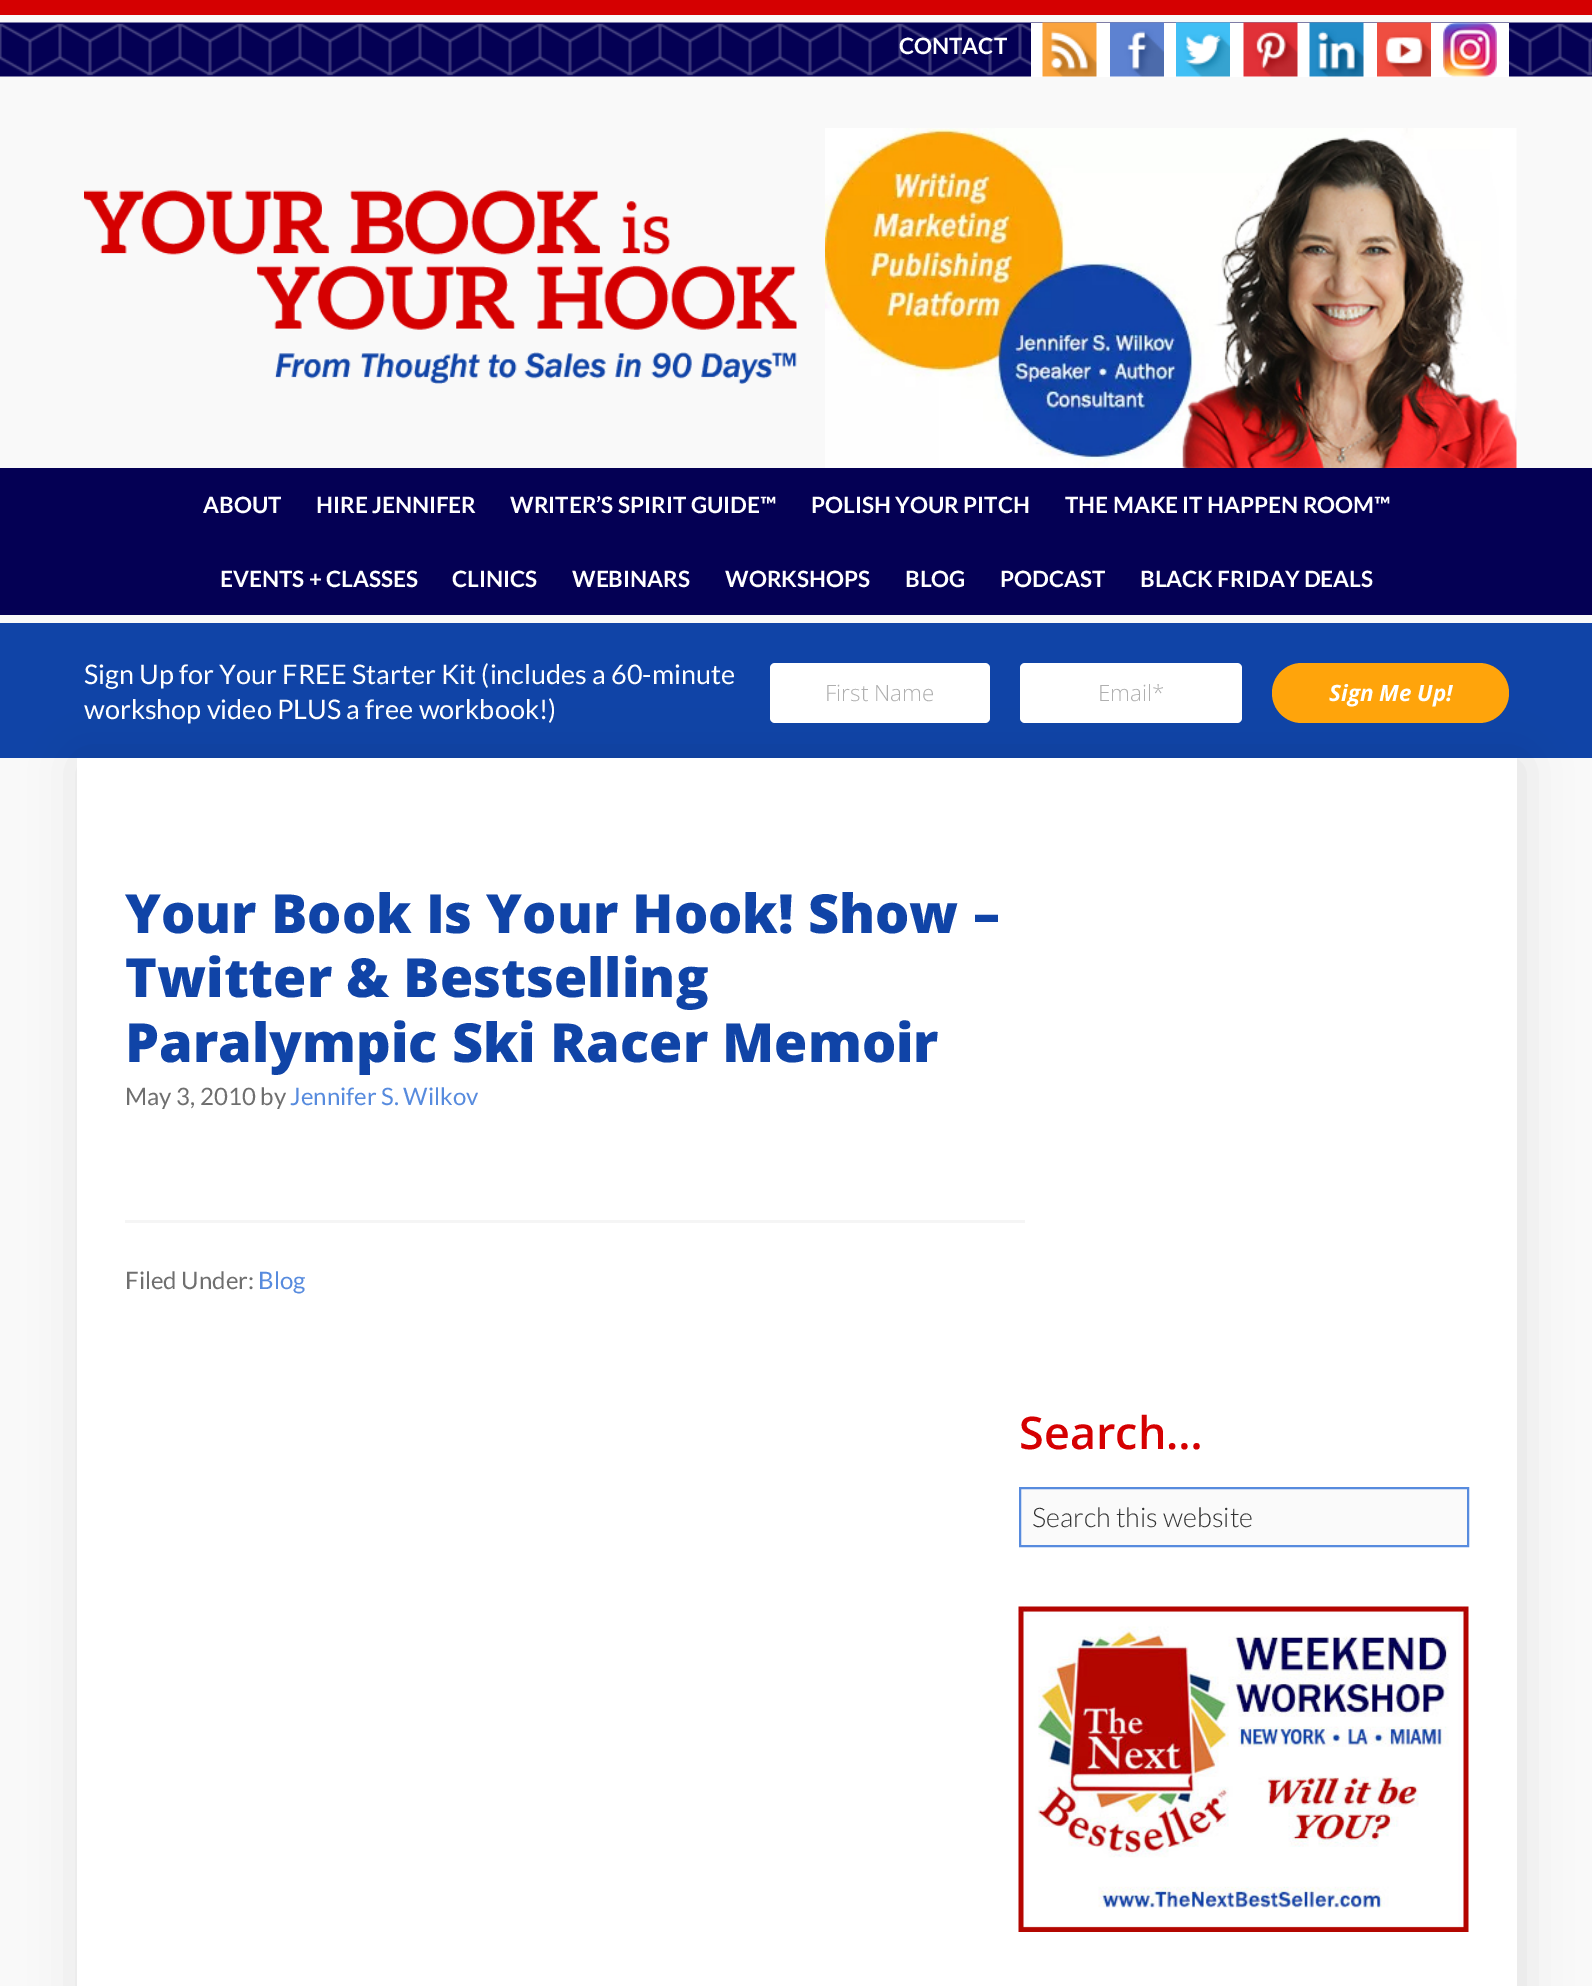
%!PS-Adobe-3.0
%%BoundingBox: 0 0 1592 1986
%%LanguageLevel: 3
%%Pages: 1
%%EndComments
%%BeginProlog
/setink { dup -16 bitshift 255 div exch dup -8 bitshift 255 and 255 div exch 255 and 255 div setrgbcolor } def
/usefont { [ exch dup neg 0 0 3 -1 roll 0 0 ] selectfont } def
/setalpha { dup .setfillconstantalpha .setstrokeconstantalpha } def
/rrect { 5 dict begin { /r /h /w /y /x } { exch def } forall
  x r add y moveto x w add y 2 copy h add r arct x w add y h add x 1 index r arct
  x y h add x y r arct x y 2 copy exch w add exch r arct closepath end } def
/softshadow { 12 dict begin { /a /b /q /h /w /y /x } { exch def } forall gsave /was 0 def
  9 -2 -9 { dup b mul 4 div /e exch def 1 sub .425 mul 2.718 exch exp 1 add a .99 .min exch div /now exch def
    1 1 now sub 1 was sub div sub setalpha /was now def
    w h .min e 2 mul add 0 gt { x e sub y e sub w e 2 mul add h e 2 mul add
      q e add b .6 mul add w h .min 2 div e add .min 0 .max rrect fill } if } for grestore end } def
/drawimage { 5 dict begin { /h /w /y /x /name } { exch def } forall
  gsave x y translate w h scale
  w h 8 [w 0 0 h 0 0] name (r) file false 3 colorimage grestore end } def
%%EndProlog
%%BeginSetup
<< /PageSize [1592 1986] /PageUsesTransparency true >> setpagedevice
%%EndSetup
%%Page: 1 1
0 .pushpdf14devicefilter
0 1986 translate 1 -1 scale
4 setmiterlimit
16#F9F9F9 setink
0 0 1592 1986 rectfill
16#D50001 setink
0 0 1592 15 rectfill
(img1.raw) 0 22 1592 55 drawimage
/Lato-Bold 22.5 usefont
16#FFFFFF setink
899 54 moveto (CONTACT) show
1031 23 478 54 rectfill
(img2.raw) 1042 22 55 55 drawimage
(img3.raw) 1110 22 54 55 drawimage
(img4.raw) 1176 22 54 55 drawimage
(img5.raw) 1243 22 55 55 drawimage
(img6.raw) 1309 22 55 55 drawimage
(img7.raw) 1377 22 54 55 drawimage
(img8.raw) 1443 22 54 55 drawimage
(img9.raw) 825 128 692 340 drawimage
(img10.raw) 84 190 713 194 drawimage
16#040054 setink
0 468 1592 147 rectfill
16#FFFFFF setink
[
    [(ABOUT) 203 513]
    [(HIRE JENNIFER) 316 513]
    [(WRITER’S SPIRIT GUIDE™) 510 513]
    [(POLISH YOUR PITCH) 811 513]
    [(THE MAKE IT HAPPEN ROOM™) 1065 513]
    [(EVENTS + CLASSES) 220 587]
    [(CLINICS) 452 587]
    [(WEBINARS) 572 587]
    [(WORKSHOPS) 725 587]
    [(BLOG) 905 587]
    [(PODCAST) 1000 587]
    [(BLACK FRIDAY DEALS) 1140 587]
] { aload pop moveto show } forall
16#1044A7 setink
0 623 1592 135 rectfill
/Lato-Regular 27 usefont
16#FFFFFF setink
84 684 moveto (Sign Up for Your FREE Starter Kit \(includes a 60-minute) show
16#000000 setink
81 762 1440 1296 0 24 0.1 softshadow
16#FFFFFF setink
84 719 moveto (workshop video PLUS a free workbook!\)) show
770 663 220 60 5 rrect fill
/OpenSans-Light 22.5 usefont
16#AFAFAF setink
825 701 moveto (First Name) show
16#FFFFFF setink
1020 663 222 60 5 rrect fill
16#AFAFAF setink
1098 701 moveto (Email*) show
16#FFA40B setink
1272 663 237 60 30 rrect fill
/OpenSans-BoldItalic 22.5 usefont
16#FFFFFF setink
1329 701 moveto (Sign Me Up!) show
77 758 1440 1228 rectfill
/OpenSans-ExtraBold 54 usefont
16#1044A7 setink
[
    [(Your Book Is Your Hook! Show –) 125 933]
    [(Twitter & Bestselling) 125 997]
    [(Paralympic Ski Racer Memoir) 125 1062]
] { aload pop moveto show } forall
/Lato-Regular 24 usefont
16#6F6F6F setink
125 1105 moveto (May 3, 2010 by) show
16#578BDE setink
290 1105 moveto (Jennifer S. Wilkov) show
16#F5F5F5 setink
125 1220 900 3 rectfill
16#6F6F6F setink
125 1289 moveto (Filed Under:) show
16#578BDE setink
258 1289 moveto (Blog) show
/OpenSans-SemiBold 45 usefont
16#D50001 setink
1019 1449 moveto (Search…) show
16#FAFAFA setink
1020 1488 moveto 1468 1488 lineto 1468 1546 lineto 1020 1546 lineto closepath gsave fill grestore
16#578BDE setink
2 setlinewidth
stroke
/Lato-Light 27 usefont
16#333333 setink
1032 1527 moveto (Search this website) show
(img11.raw) 1018 1606 451 326 drawimage
.poppdf14devicefilter showpage
%%EOF
